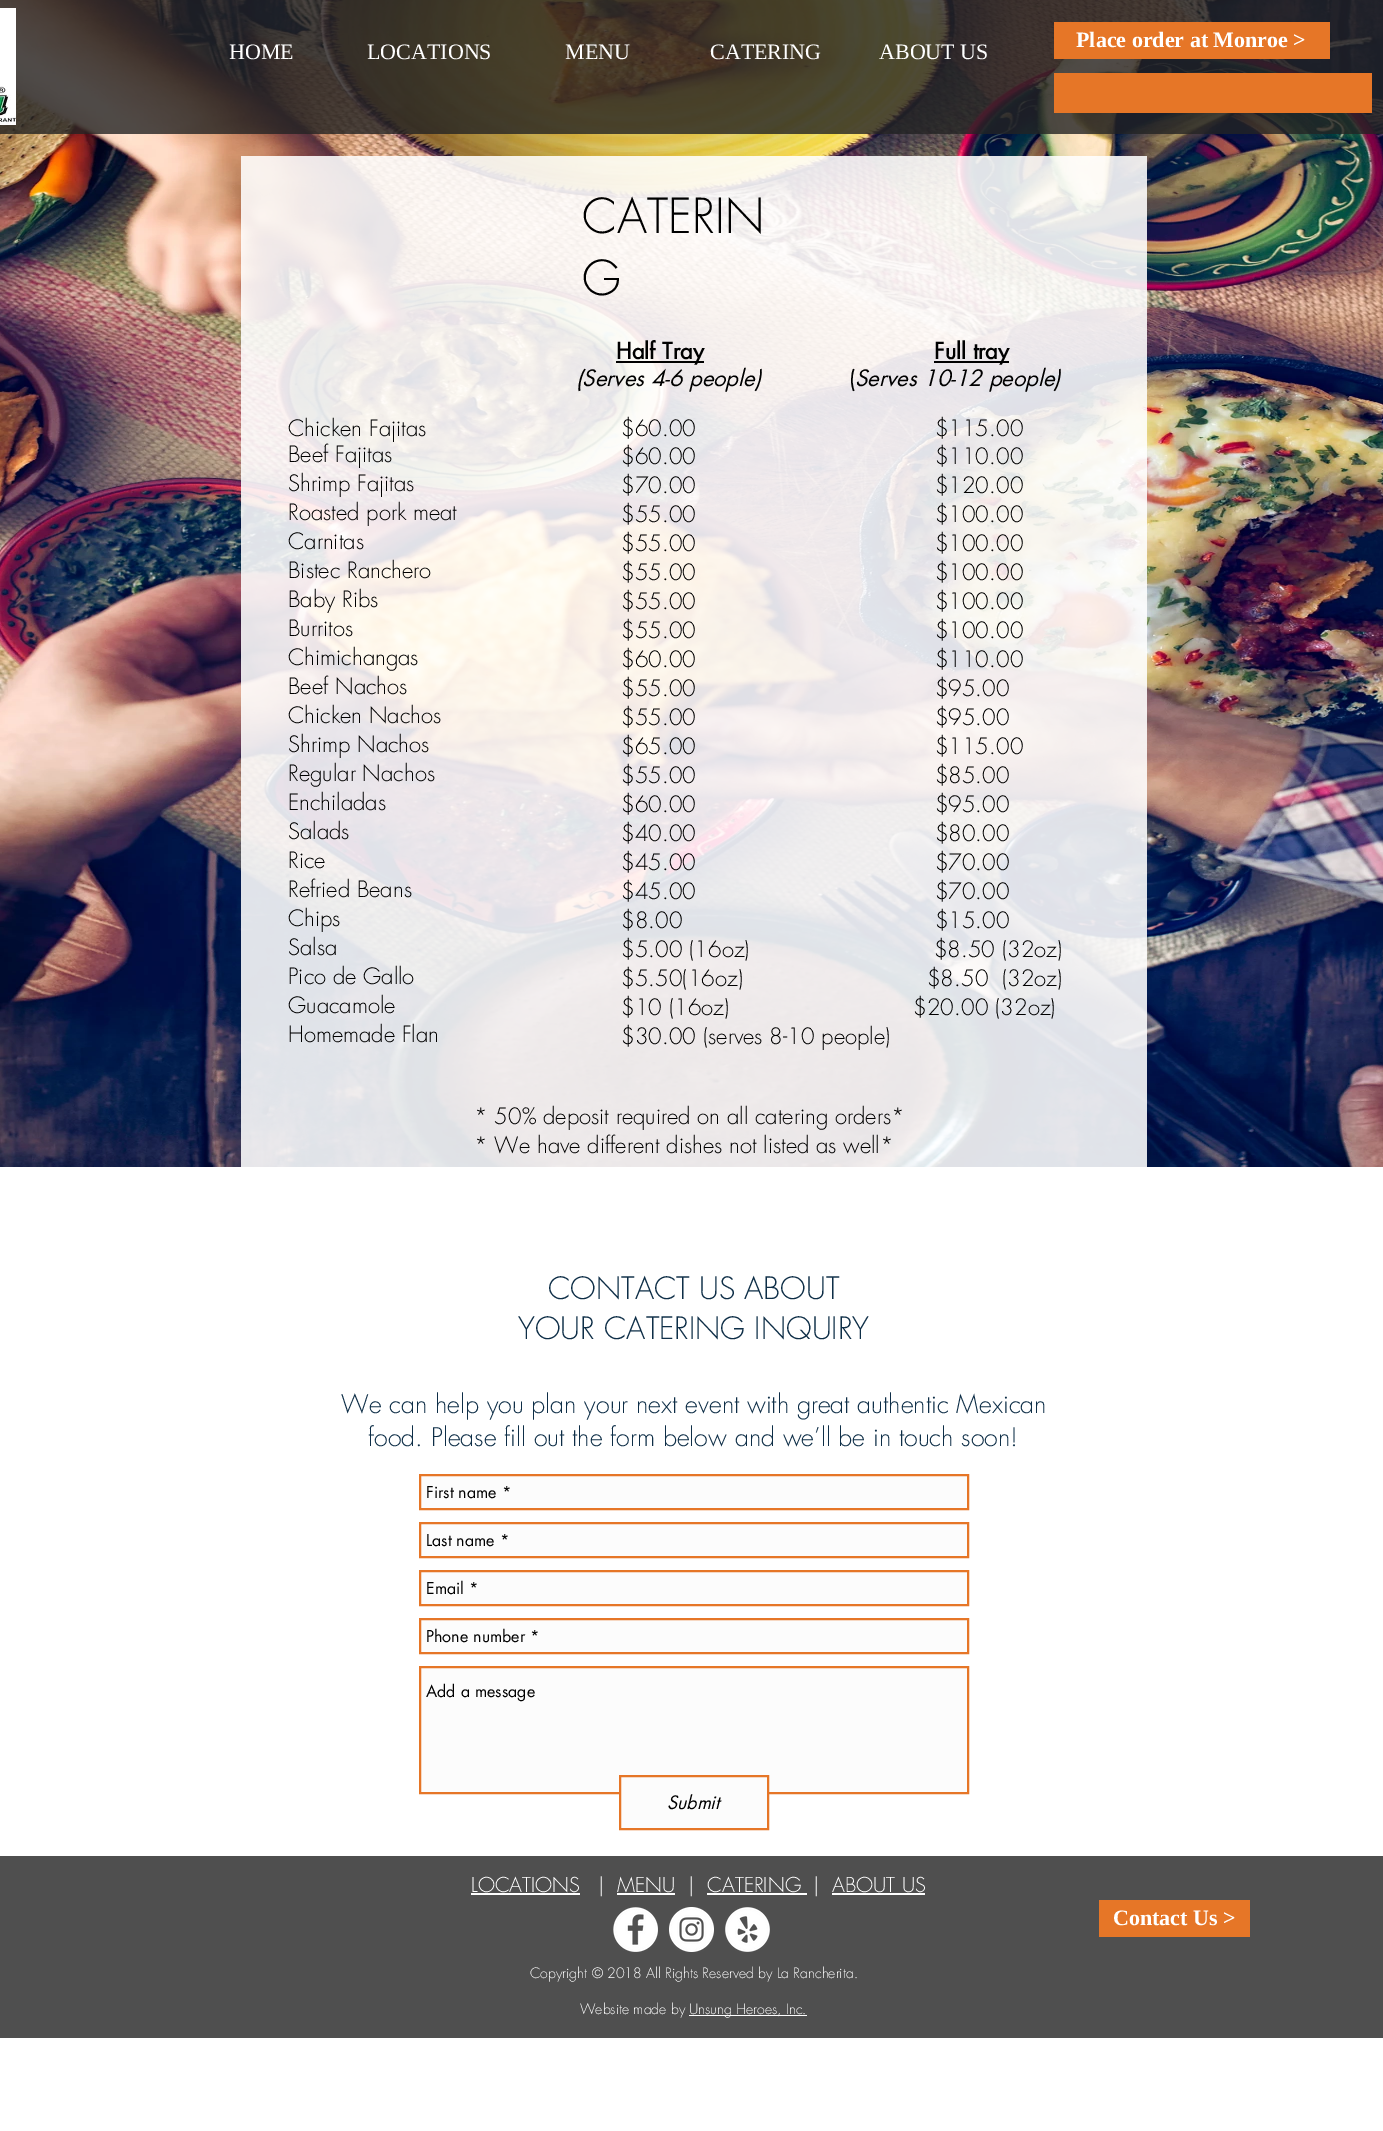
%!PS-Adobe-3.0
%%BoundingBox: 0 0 1383 2131
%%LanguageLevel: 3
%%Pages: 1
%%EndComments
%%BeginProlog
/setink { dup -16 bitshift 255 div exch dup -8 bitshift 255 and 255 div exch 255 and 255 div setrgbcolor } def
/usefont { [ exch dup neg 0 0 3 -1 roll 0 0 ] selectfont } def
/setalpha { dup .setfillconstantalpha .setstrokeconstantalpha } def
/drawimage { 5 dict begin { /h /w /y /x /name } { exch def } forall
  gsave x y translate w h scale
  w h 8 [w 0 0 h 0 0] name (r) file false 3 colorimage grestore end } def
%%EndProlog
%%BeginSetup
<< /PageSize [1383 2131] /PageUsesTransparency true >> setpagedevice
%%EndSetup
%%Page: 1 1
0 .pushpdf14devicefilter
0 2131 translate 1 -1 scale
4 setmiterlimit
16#FFFFFF setink
0 0 1383 2131 rectfill
(img2.raw) 0 0 1383 1167 drawimage
0.8 setalpha
16#232323 setink
0 0 1383 134 rectfill
1 setalpha
(img1.raw) 0 8 16 117 drawimage
16#E67627 setink
1054 22 276 37 rectfill
/LiberationSerif-Bold 22 usefont
16#FFFFFF setink
1076 47 moveto (Place order at Monroe >) show
16#E67627 setink
1054 73 318 40 rectfill
/LiberationSerif-Regular 22 usefont
16#FFFFFF setink
[
    [(HOME) 229 59]
    [(LOCATIONS) 367 59]
    [(MENU) 565 59]
    [(CATERING) 710 59]
    [(ABOUT US) 879 59]
] { aload pop moveto show } forall
0.88 setalpha
241 156 906 1011 rectfill
/futura-Light 47 usefont
1 setalpha
16#000000 setink
582 233 moveto (CATERIN) show
582 295 moveto (G) show
616 361 88 2 rectfill
/futura-Bold 22 usefont
616 359 moveto (Half Tray) show
934 361 75 2 rectfill
934 359 moveto (Full tray) show
/futura-Italic 22 usefont
576 386 moveto (\(Serves 4-6 people\)) show
/futura-Regular 22 usefont
849 386 moveto (\() show
/futura-Italic 22 usefont
855 386 moveto (Serves 10-12 people\)) show
/futura-Light 22 usefont
[
    [(Chicken Fajitas) 288 436]
    [(Beef Fajitas) 288 462]
    [(Shrimp Fajitas) 288 491]
    [(Roasted pork meat) 288 520]
    [(Carnitas) 288 549]
    [(Bistec Ranchero) 288 578]
    [(Baby Ribs) 288 607]
    [(Burritos) 288 636]
    [(Chimichangas) 288 665]
    [(Beef Nachos) 288 694]
    [(Chicken Nachos) 288 723]
    [(Shrimp Nachos) 288 752]
    [(Regular Nachos) 288 781]
    [(Enchiladas) 288 810]
    [(Salads) 288 839]
    [(Rice) 288 868]
    [(Refried Beans) 288 897]
    [(Chips) 288 926]
    [(Salsa) 288 955]
    [(Pico de Gallo) 288 984]
    [(Guacamole) 288 1013]
    [(Homemade Flan) 288 1042]
    [($60.00                                   $115.00) 621 436]
    [($60.00                                   $110.00) 621 464]
    [($70.00                                   $120.00) 621 493]
    [($55.00                                   $100.00) 621 522]
    [($55.00                                   $100.00) 621 551]
    [($55.00                                   $100.00) 621 580]
    [($55.00                                   $100.00) 621 609]
    [($55.00                                   $100.00) 621 638]
    [($60.00                                   $110.00) 621 667]
    [($55.00                                   $95.00) 621 696]
    [($55.00                                   $95.00) 621 725]
    [($65.00                                   $115.00) 621 754]
    [($55.00                                   $85.00) 621 783]
    [($60.00                                   $95.00) 621 812]
    [($40.00                                   $80.00) 621 841]
    [($45.00                                   $70.00) 621 870]
    [($45.00                                   $70.00) 621 899]
    [($8.00                                     $15.00) 621 928]
    [($5.00 \(16oz\)                           $8.50 \(32oz\)) 621 957]
    [($5.50\(16oz\)                           $8.50  \(32oz\)) 621 986]
    [($10 \(16oz\)                           $20.00 \(32oz\)) 621 1015]
    [($30.00 \(serves 8-10 people\)) 621 1044]
    [(* 50% deposit required on all catering orders*) 474 1124]
    [(* We have different dishes not listed as well*) 474 1153]
] { aload pop moveto show } forall
/futura-Light 30 usefont
16#0E2E47 setink
548 1299 moveto (CONTACT US ABOUT) show
518 1339 moveto (YOUR CATERING INQUIRY) show
/futura-Light 25 usefont
341 1413 moveto (We can help you plan your next event with great authentic Mexican) show
368 1446 moveto (food. Please fill out the form below and we’ll be in touch soon!) show
16#FCFCFC setink
420 1475 moveto 968 1475 lineto 968 1509 lineto 420 1509 lineto closepath gsave fill grestore
16#E67627 setink
2 setlinewidth
stroke
/futura-Regular 16 usefont
16#000000 setink
426 1498 moveto (First name *) show
16#FCFCFC setink
420 1523 moveto 968 1523 lineto 968 1557 lineto 420 1557 lineto closepath gsave fill grestore
16#E67627 setink
stroke
16#000000 setink
426 1546 moveto (Last name *) show
16#FCFCFC setink
420 1571 moveto 968 1571 lineto 968 1605 lineto 420 1605 lineto closepath gsave fill grestore
16#E67627 setink
stroke
16#000000 setink
426 1594 moveto (Email *) show
16#FCFCFC setink
420 1619 moveto 968 1619 lineto 968 1653 lineto 420 1653 lineto closepath gsave fill grestore
16#E67627 setink
stroke
16#000000 setink
426 1642 moveto (Phone number *) show
16#FCFCFC setink
420 1667 moveto 968 1667 lineto 968 1793 lineto 420 1793 lineto closepath gsave fill grestore
16#E67627 setink
stroke
16#000000 setink
426 1697 moveto (Add a message) show
16#FCFCFC setink
621 1792 146 36 rectfill
16#E67627 setink
620 1776 148 53 rectstroke
/futura-Italic 18 usefont
16#000000 setink
667 1809 moveto (Submit) show
16#4F4F4F setink
0 1856 1383 182 rectfill
/futura-Light 20 usefont
16#FFFFFF setink
471 1892 moveto (LOCATIONS) show
471 1893 109 2 rectfill
598 1892 moveto (|) show
617 1892 moveto (MENU) show
617 1893 58 2 rectfill
688 1892 moveto (|) show
707 1892 moveto (CATERING) show
707 1893 100 2 rectfill
813 1892 moveto (|) show
832 1892 moveto (ABOUT US) show
832 1893 93 2 rectfill
(img3.raw) 613 1907 45 45 drawimage
(img4.raw) 669 1907 45 45 drawimage
(img5.raw) 725 1907 45 45 drawimage
16#E67627 setink
1099 1900 151 37 rectfill
/LiberationSerif-Bold 22 usefont
16#FFFFFF setink
1113 1925 moveto (Contact Us >) show
/futura-Light 14 usefont
530 1978 moveto (Copyright © 2018 All Rights Reserved by La Rancherita.) show
580 2014 moveto (Website made by) show
689 2015 118 1 rectfill
689 2014 moveto (Unsung Heroes, Inc.) show
.poppdf14devicefilter showpage
%%EOF
